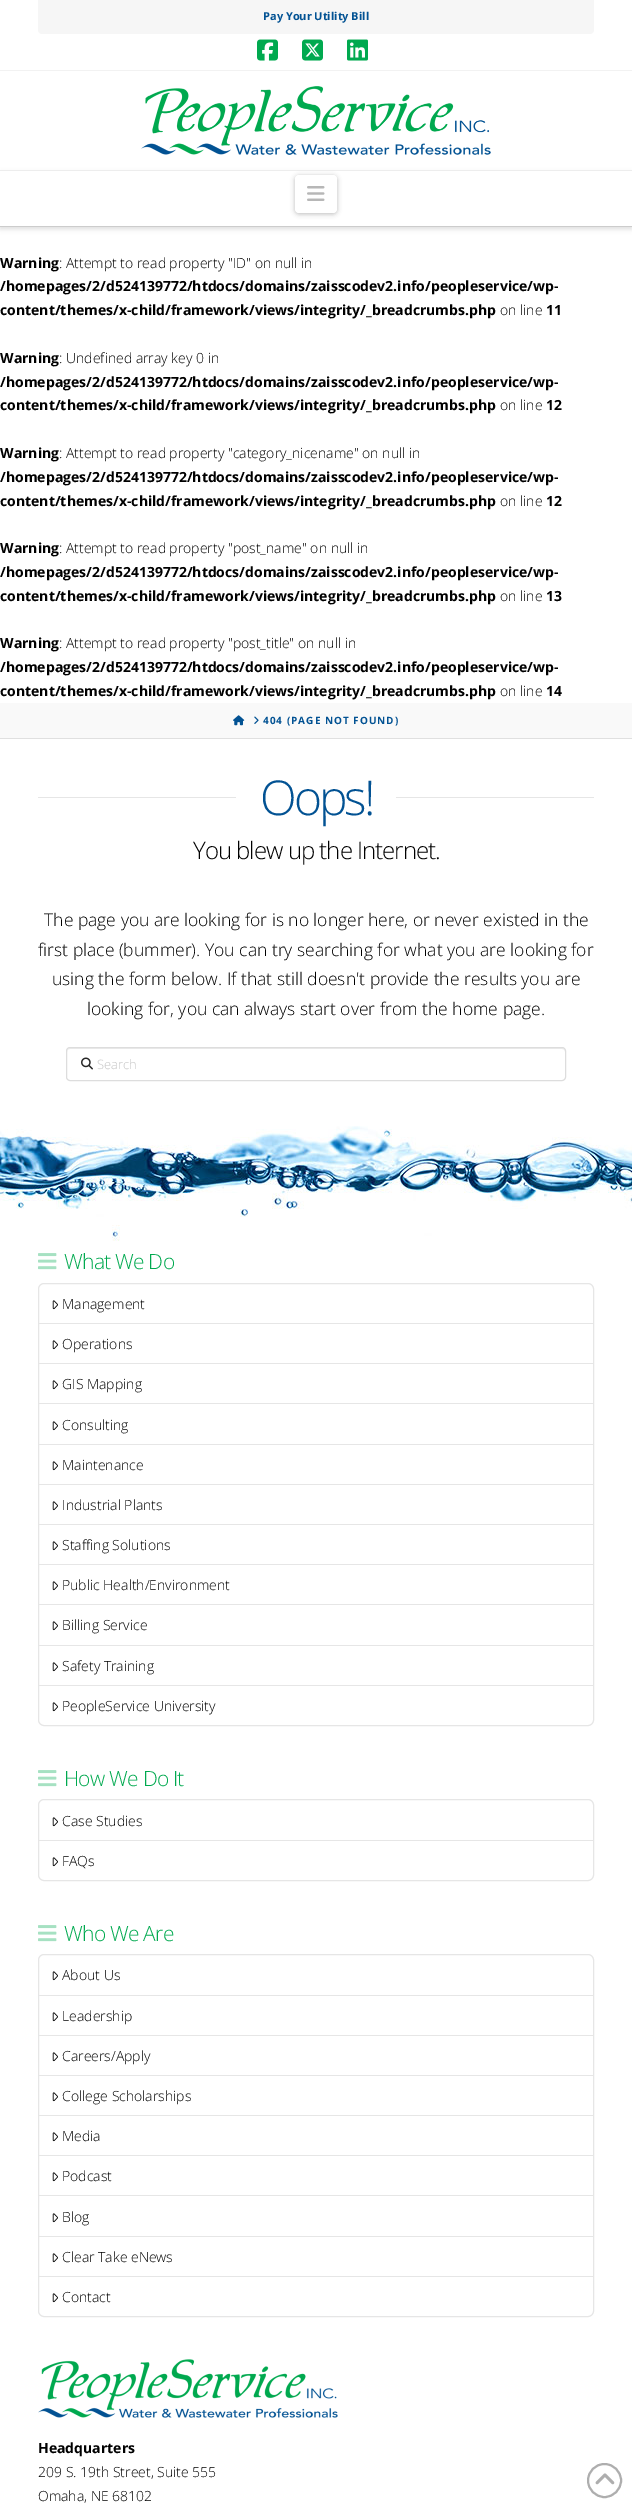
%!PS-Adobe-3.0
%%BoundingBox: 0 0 632 2508
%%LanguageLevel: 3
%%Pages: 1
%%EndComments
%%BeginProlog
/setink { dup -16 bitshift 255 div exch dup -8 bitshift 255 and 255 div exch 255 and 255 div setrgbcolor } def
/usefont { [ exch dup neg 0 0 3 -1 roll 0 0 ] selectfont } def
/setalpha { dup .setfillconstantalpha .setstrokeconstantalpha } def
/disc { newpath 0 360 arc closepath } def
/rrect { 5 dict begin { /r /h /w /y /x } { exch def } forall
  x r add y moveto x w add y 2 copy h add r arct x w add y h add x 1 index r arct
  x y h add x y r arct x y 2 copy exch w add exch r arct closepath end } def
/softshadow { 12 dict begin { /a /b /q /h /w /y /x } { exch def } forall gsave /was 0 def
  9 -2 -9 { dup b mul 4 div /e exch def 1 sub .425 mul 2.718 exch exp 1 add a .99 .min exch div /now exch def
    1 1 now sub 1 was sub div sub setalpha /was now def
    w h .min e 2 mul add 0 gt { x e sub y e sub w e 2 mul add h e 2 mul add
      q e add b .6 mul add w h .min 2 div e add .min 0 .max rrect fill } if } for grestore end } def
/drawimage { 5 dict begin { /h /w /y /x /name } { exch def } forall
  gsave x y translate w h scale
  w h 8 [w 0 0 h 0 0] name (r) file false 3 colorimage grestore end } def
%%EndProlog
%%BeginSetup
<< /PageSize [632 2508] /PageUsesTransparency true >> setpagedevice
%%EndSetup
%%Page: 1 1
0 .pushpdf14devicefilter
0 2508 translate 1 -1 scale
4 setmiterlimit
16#FFFFFF setink
0 0 632 2508 rectfill
16#F2F2F2 setink
0 70 632 1 rectfill
16#F6F6F6 setink
38 0 moveto 594 0 lineto 594 30 lineto 594 32 592 34 590 34 curveto 42 34 lineto 40 34 38 32 38 30 curveto closepath fill
/OpenSans-Bold 11 usefont
16#025293 setink
263 20 moveto (Pay Your Utility Bill) show
(img1.raw) 257 39 21 22 drawimage
(img2.raw) 302 39 21 22 drawimage
(img3.raw) 347 39 21 22 drawimage
16#F2F2F2 setink
0 170 632 1 rectfill
(img4.raw) 141 86 350 69 drawimage
gsave
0 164 moveto 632 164 lineto 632 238 lineto 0 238 lineto closepath 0 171 moveto 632 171 lineto 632 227 lineto 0 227 lineto closepath eoclip newpath
16#000000 setink
0 173 632 56 0 2.5 0.13 softshadow
grestore
16#CCCCCC setink
0 226 632 1 rectfill
16#000000 setink
295 176 42 38 4 2.5 0.25 softshadow
16#FFFFFF setink
295 175 42 38 4 rrect fill
(img5.raw) 307 186 18 15 drawimage
/OpenSans-Bold 14 usefont
16#000000 setink
0 268 moveto (Warning) show
/OpenSans-Light 14 usefont
59 268 moveto (: Attempt to read property "ID" on null in) show
/OpenSans-Bold 14 usefont
0 291 moveto (/homepages/2/d524139772/htdocs/domains/zaisscodev2.info/peopleservice/wp-) show
0 315 moveto (content/themes/x-child/framework/views/integrity/_breadcrumbs.php) show
/OpenSans-Light 14 usefont
500 315 moveto (on line) show
/OpenSans-Bold 14 usefont
546 315 moveto (11) show
0 363 moveto (Warning) show
/OpenSans-Light 14 usefont
59 363 moveto (: Undefined array key 0 in) show
/OpenSans-Bold 14 usefont
0 387 moveto (/homepages/2/d524139772/htdocs/domains/zaisscodev2.info/peopleservice/wp-) show
0 410 moveto (content/themes/x-child/framework/views/integrity/_breadcrumbs.php) show
/OpenSans-Light 14 usefont
500 410 moveto (on line) show
/OpenSans-Bold 14 usefont
546 410 moveto (12) show
0 458 moveto (Warning) show
/OpenSans-Light 14 usefont
59 458 moveto (: Attempt to read property "category_nicename" on null in) show
/OpenSans-Bold 14 usefont
0 482 moveto (/homepages/2/d524139772/htdocs/domains/zaisscodev2.info/peopleservice/wp-) show
0 506 moveto (content/themes/x-child/framework/views/integrity/_breadcrumbs.php) show
/OpenSans-Light 14 usefont
500 506 moveto (on line) show
/OpenSans-Bold 14 usefont
546 506 moveto (12) show
0 553 moveto (Warning) show
/OpenSans-Light 14 usefont
59 553 moveto (: Attempt to read property "post_name" on null in) show
/OpenSans-Bold 14 usefont
0 577 moveto (/homepages/2/d524139772/htdocs/domains/zaisscodev2.info/peopleservice/wp-) show
0 601 moveto (content/themes/x-child/framework/views/integrity/_breadcrumbs.php) show
/OpenSans-Light 14 usefont
500 601 moveto (on line) show
/OpenSans-Bold 14 usefont
546 601 moveto (13) show
0 648 moveto (Warning) show
/OpenSans-Light 14 usefont
59 648 moveto (: Attempt to read property "post_title" on null in) show
/OpenSans-Bold 14 usefont
0 672 moveto (/homepages/2/d524139772/htdocs/domains/zaisscodev2.info/peopleservice/wp-) show
0 696 moveto (content/themes/x-child/framework/views/integrity/_breadcrumbs.php) show
/OpenSans-Light 14 usefont
500 696 moveto (on line) show
/OpenSans-Bold 14 usefont
546 696 moveto (14) show
16#F9F9F9 setink
0 703 632 35 rectfill
16#E0E0E0 setink
0 738 632 1 rectfill
(img6.raw) 233 715 12 11 drawimage
(img7.raw) 254 716 5 8 drawimage
/OpenSans-Bold 10 usefont
16#025293 setink
263 724 moveto 1 0 (404 \(PAGE NOT FOUND\)) ashow
16#E6E6E6 setink
38 797 198 1 rectfill
/OpenSans-Light 48 usefont
16#025293 setink
260 815 moveto -3 0 (Oops!) ashow
16#E6E6E6 setink
396 797 198 1 rectfill
/OpenSans-Light 24 usefont
16#000000 setink
193 859 moveto -1 0 (You blew up the Internet.) ashow
/OpenSans-Light 17.5 usefont
[
    [(The page you are looking for is no longer here, or never existed in the) 44 926]
    [(first place \(bummer\). You can try searching for what you are looking for) 38 956]
    [(using the form below. If that still doesn't provide the results you are) 52 985]
    [(looking for, you can always start over from the home page.) 87 1015]
] { aload pop moveto show } forall
16#ECECEC setink
70 1049 moveto 562 1049 lineto 564 1049 565 1050 565 1052 curveto 565 1050 564 1048 562 1048 curveto 70 1048 lineto 68 1048 67 1050 67 1052 curveto 67 1050 68 1049 70 1049 curveto closepath fill
16#DDDDDD setink
66.5 1047.5 499 33 3.5 rrect stroke
(img8.raw) 81 1057 12 13 drawimage
/OpenSans-Light 13 usefont
16#C5C5C5 setink
97 1069 moveto (Search) show
(img9.raw) 0 1126 632 115 drawimage
(img10.raw) 38 1253 19 17 drawimage
/OpenSans-Light 21 usefont
16#00A94F setink
64 1269 moveto -0.75 0 (What We Do) ashow
16#E6E6E6 setink
38.5 1283.5 555 442 5.5 rrect stroke
39 1323 554 1 rectfill
(img11.raw) 52 1300 6 10 drawimage
/OpenSans-Light 14 usefont
16#000000 setink
62 1309 moveto (Management) show
16#E6E6E6 setink
39 1363 554 1 rectfill
(img11.raw) 52 1340 6 10 drawimage
16#000000 setink
62 1349 moveto (Operations) show
16#E6E6E6 setink
39 1403 554 1 rectfill
(img11.raw) 52 1380 6 10 drawimage
16#000000 setink
62 1389 moveto (GIS Mapping) show
16#E6E6E6 setink
39 1444 554 1 rectfill
(img11.raw) 52 1421 6 10 drawimage
16#000000 setink
62 1430 moveto (Consulting) show
16#E6E6E6 setink
39 1484 554 1 rectfill
(img11.raw) 52 1461 6 10 drawimage
16#000000 setink
62 1470 moveto (Maintenance) show
16#E6E6E6 setink
39 1524 554 1 rectfill
(img11.raw) 52 1501 6 10 drawimage
16#000000 setink
62 1510 moveto (Industrial Plants) show
16#E6E6E6 setink
39 1564 554 1 rectfill
(img11.raw) 52 1541 6 10 drawimage
16#000000 setink
62 1550 moveto (Staffing Solutions) show
16#E6E6E6 setink
39 1604 554 1 rectfill
(img11.raw) 52 1581 6 10 drawimage
16#000000 setink
62 1590 moveto (Public Health/Environment) show
16#E6E6E6 setink
39 1645 554 1 rectfill
(img11.raw) 52 1621 6 10 drawimage
16#000000 setink
62 1630 moveto (Billing Service) show
16#E6E6E6 setink
39 1685 554 1 rectfill
(img11.raw) 52 1662 6 10 drawimage
16#000000 setink
62 1671 moveto (Safety Training) show
(img11.raw) 52 1702 6 10 drawimage
62 1711 moveto (PeopleService University) show
(img10.raw) 38 1770 19 17 drawimage
/OpenSans-Light 21 usefont
16#00A94F setink
64 1786 moveto -0.75 0 (How We Do It) ashow
16#E6E6E6 setink
38.5 1799.5 555 81 5.5 rrect stroke
39 1840 554 1 rectfill
(img11.raw) 52 1817 6 10 drawimage
/OpenSans-Light 14 usefont
16#000000 setink
62 1826 moveto (Case Studies) show
(img11.raw) 52 1857 6 10 drawimage
62 1866 moveto (FAQs) show
(img10.raw) 38 1925 19 17 drawimage
/OpenSans-Light 21 usefont
16#00A94F setink
64 1941 moveto -0.75 0 (Who We Are) ashow
16#E6E6E6 setink
38.5 1954.5 555 362 5.5 rrect stroke
39 1995 554 1 rectfill
(img11.raw) 52 1971 6 10 drawimage
/OpenSans-Light 14 usefont
16#000000 setink
62 1980 moveto (About Us) show
16#E6E6E6 setink
39 2035 554 1 rectfill
(img11.raw) 52 2012 6 10 drawimage
16#000000 setink
62 2021 moveto (Leadership) show
16#E6E6E6 setink
39 2075 554 1 rectfill
(img11.raw) 52 2052 6 10 drawimage
16#000000 setink
62 2061 moveto (Careers/Apply) show
16#E6E6E6 setink
39 2115 554 1 rectfill
(img11.raw) 52 2092 6 10 drawimage
16#000000 setink
62 2101 moveto (College Scholarships) show
16#E6E6E6 setink
39 2155 554 1 rectfill
(img11.raw) 52 2132 6 10 drawimage
16#000000 setink
62 2141 moveto (Media) show
16#E6E6E6 setink
39 2195 554 1 rectfill
(img11.raw) 52 2172 6 10 drawimage
16#000000 setink
62 2181 moveto (Podcast) show
16#E6E6E6 setink
39 2236 554 1 rectfill
(img11.raw) 52 2213 6 10 drawimage
16#000000 setink
62 2222 moveto (Blog) show
16#E6E6E6 setink
39 2276 554 1 rectfill
(img11.raw) 52 2253 6 10 drawimage
16#000000 setink
62 2262 moveto (Clear Take eNews) show
(img11.raw) 52 2293 6 10 drawimage
62 2302 moveto (Contact) show
(img12.raw) 38 2359 300 59 drawimage
/OpenSans-Bold 14 usefont
38 2453 moveto (Headquarters) show
/OpenSans-Light 14 usefont
38 2477 moveto (209 S. 19th Street, Suite 555) show
38 2501 moveto (Omaha, NE 68102) show
16#AEAEAE setink
2 setlinewidth
604.5 2480.5 16.5 disc stroke
(img13.raw) 595 2473 20 12 drawimage
.poppdf14devicefilter showpage
%%EOF
